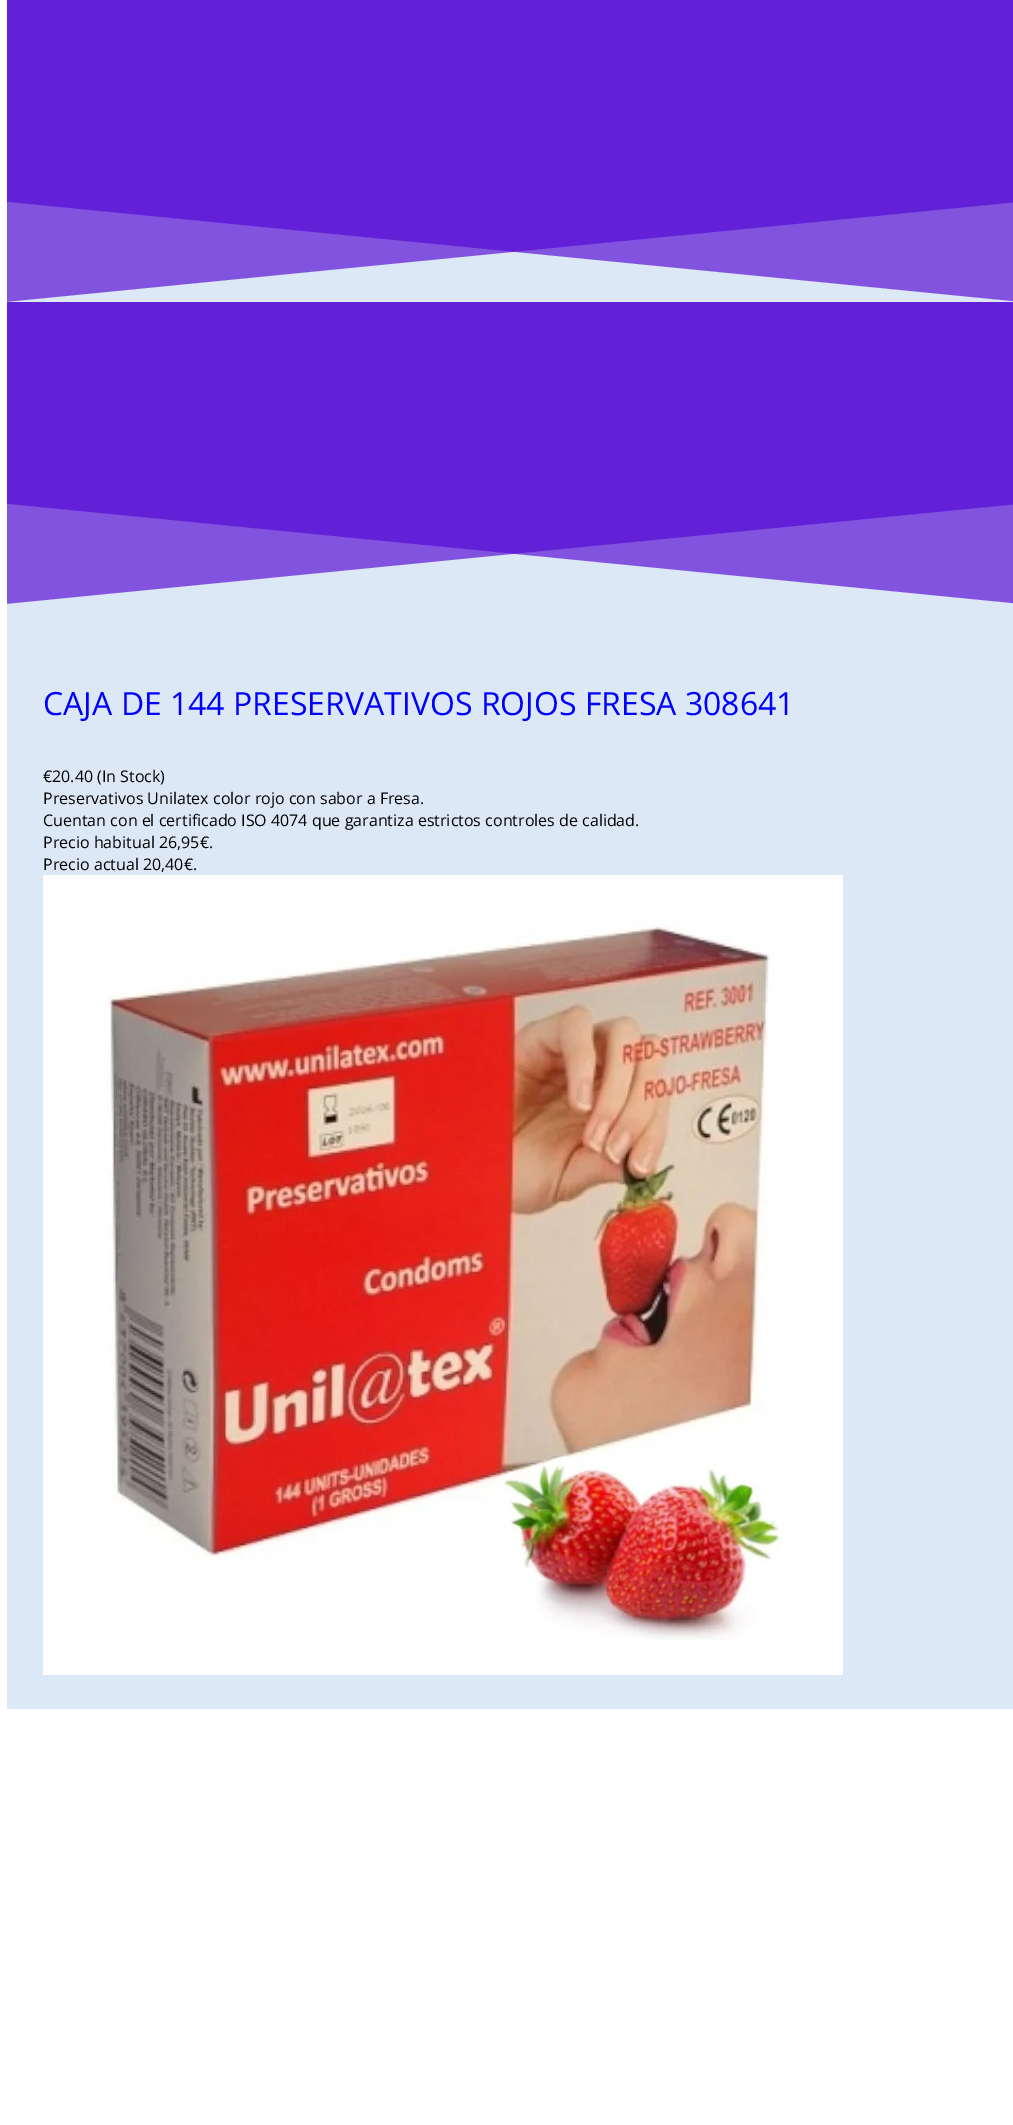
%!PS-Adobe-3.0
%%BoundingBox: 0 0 1013 2125
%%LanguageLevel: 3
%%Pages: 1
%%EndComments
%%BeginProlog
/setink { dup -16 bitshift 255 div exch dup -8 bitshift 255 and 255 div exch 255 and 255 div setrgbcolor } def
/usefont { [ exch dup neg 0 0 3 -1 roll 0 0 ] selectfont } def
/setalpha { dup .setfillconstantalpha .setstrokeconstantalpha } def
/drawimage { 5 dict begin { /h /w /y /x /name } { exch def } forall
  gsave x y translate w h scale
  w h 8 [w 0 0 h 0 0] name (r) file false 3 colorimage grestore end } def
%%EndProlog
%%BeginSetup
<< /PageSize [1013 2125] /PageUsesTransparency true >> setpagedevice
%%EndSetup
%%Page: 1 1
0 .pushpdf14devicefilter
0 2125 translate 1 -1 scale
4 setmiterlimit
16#FFFFFF setink
0 0 1013 2125 rectfill
16#6321D7 setink
7 0 1006 604 rectfill
16#DDE8F7 setink
514 252 moveto 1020 302 lineto 7 302 lineto closepath fill
0.25 setalpha
514 252 moveto 7 302 lineto 7 202 lineto closepath fill
514 252 moveto 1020 302 lineto 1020 202 lineto closepath fill
1 setalpha
514 554 moveto 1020 604 lineto 7 604 lineto closepath fill
0.25 setalpha
514 554 moveto 7 604 lineto 7 504 lineto closepath fill
514 554 moveto 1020 604 lineto 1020 504 lineto closepath fill
1 setalpha
7 604 1006 1105 rectfill
/OpenSans-Regular 32 usefont
16#0000FF setink
43 715 moveto (CAJA DE 144 PRESERVATIVOS ROJOS FRESA 308641) show
/OpenSans-Regular 16 usefont
16#000000 setink
[
    [(€20.40 \(In Stock\)) 43 782]
    [(Preservativos Unilatex color rojo con sabor a Fresa.) 43 804]
    [(Cuentan con el certificado ISO 4074 que garantiza estrictos controles de calidad.) 43 826]
    [(Precio habitual 26,95€.) 43 848]
    [(Precio actual 20,40€.) 43 870]
] { aload pop moveto show } forall
(img1.raw) 43 875 800 800 drawimage
.poppdf14devicefilter showpage
%%EOF
